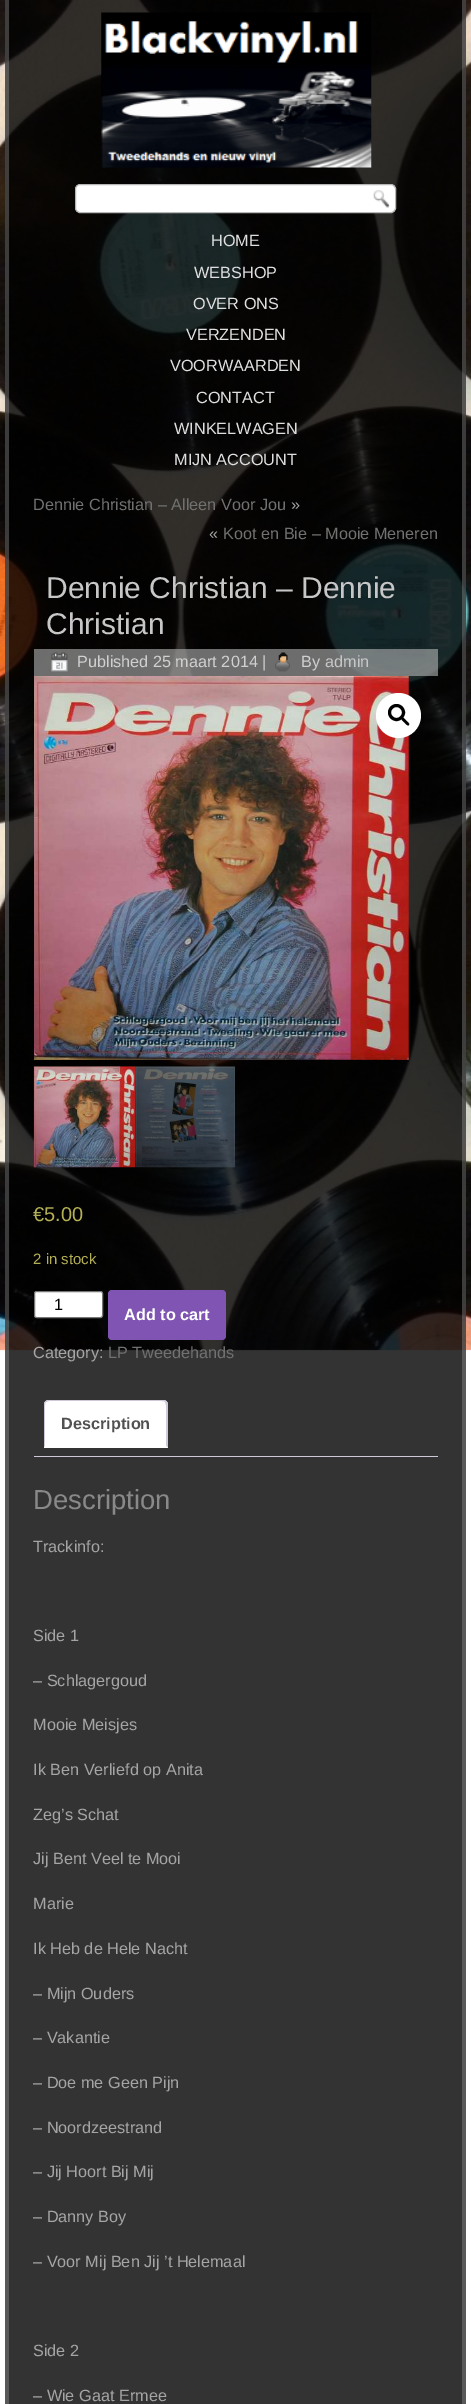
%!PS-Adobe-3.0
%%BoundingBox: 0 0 471 2404
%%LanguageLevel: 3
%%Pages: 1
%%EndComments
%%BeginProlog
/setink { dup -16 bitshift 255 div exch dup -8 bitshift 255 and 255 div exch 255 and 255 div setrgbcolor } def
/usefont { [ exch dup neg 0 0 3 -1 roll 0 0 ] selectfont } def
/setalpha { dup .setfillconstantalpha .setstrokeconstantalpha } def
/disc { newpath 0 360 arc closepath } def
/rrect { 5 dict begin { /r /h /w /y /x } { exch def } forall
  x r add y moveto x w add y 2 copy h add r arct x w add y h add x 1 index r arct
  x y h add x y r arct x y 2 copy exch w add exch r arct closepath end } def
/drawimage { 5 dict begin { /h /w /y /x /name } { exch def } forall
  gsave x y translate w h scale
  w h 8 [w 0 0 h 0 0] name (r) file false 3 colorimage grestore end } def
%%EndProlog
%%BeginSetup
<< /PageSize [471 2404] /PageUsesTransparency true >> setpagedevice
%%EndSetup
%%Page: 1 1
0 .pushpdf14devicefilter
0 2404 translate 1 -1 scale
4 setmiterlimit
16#FFFFFF setink
0 0 471 2404 rectfill
16#333333 setink
5 1349 461 1055 rectfill
(img1.raw) 0 0 471 1351 drawimage
0.4 setalpha
16#919191 setink
466 0 moveto 466 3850 lineto 462 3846 lineto 462 0 lineto closepath fill
5 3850 moveto 5 0 lineto 9 0 lineto 9 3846 lineto closepath fill
1 setalpha
(img2.raw) 101 12 271 156 drawimage
16#FFFFFF setink
75.5 184.5 320 28 4.5 rrect gsave fill grestore
16#B6B6B6 setink
stroke
(img3.raw) 373 190 17 18 drawimage
/LiberationSans-Regular 16.25 usefont
16#DFDFDF setink
[
    [(HOME) 211 246]
    [(WEBSHOP) 194 278]
    [(OVER ONS) 193 309]
    [(VERZENDEN) 186 340]
    [(VOORWAARDEN) 170 371]
    [(CONTACT) 196 403]
    [(WINKELWAGEN) 174 434]
    [(MIJN ACCOUNT) 174 465]
] { aload pop moveto show } forall
16#717171 setink
33 510 moveto (Dennie Christian – Alleen Voor Jou) show
16#A5A5A5 setink
291 510 moveto (») show
209 539 moveto («) show
16#717171 setink
223 539 moveto (Koot en Bie – Mooie Meneren) show
/LiberationSans-Regular 30 usefont
16#C7C7C7 setink
46 598 moveto (Dennie Christian – Dennie) show
46 634 moveto (Christian) show
0.6 setalpha
16#B4B4B4 setink
34 649 404 27 rectfill
1 setalpha
(img4.raw) 51 652 17 20 drawimage
/LiberationSans-Regular 16.25 usefont
16#D0D0D0 setink
77 667 moveto (Published 25 maart 2014 |) show
(img5.raw) 275 652 15 20 drawimage
301 667 moveto (By) show
16#C7C7C7 setink
325 667 moveto (admin) show
(img6.raw) 34 676 375 384 drawimage
16#FFFFFF setink
398.5 715.5 22.5 disc fill
16#000000 setink
3 setlinewidth
396.5 712.5 7 disc stroke
402 718 moveto 403 716.5 405.5 720 406 720.5 curveto 407 721.5 410 723.5 409 725 curveto 407.5 726.5 405 723 404.5 722.5 curveto 403.5 721.5 400.5 719.5 402 718 curveto closepath fill
(img7.raw) 33 1066 102 102 drawimage
(img8.raw) 135 1066 100 102 drawimage
/LiberationSans-Regular 20 usefont
16#B3AF54 setink
33 1221 moveto (€5.00) show
/LiberationSans-Regular 15 usefont
33 1264 moveto (2 in stock) show
16#FFFFFF setink
34.5 1291.5 68 26 2 rrect gsave fill grestore
16#767676 setink
1 setlinewidth
stroke
/LiberationSans-Regular 16.25 usefont
16#000000 setink
54 1310 moveto (1) show
16#7F54B3 setink
108 1290 118 50 4 rrect fill
/LiberationSans-Bold 16.25 usefont
16#FFFFFF setink
124 1320 moveto (Add to cart) show
/LiberationSans-Regular 16.25 usefont
16#A5A5A5 setink
33 1358 moveto (Category:) show
16#717171 setink
108 1358 moveto (LP Tweedehands) show
16#FFFFFF setink
49 1400 moveto 163 1400 lineto 166 1400 168 1402 168 1405 curveto 168 1448 lineto 44 1448 lineto 44 1405 lineto 44 1402 46 1400 49 1400 curveto closepath fill
16#CFC8D8 setink
49 1400 moveto 47 1400 46 1401 45 1402 curveto 46 1402 lineto 49 1401 lineto 162 1401 lineto 163 1401 164 1401 165 1402 curveto 166 1401 lineto 165 1400 164 1400 162 1400 curveto closepath fill
166 1401 moveto 168 1403 lineto 168 1448 lineto 166 1446 lineto 166 1405 lineto 165 1402 lineto closepath fill
16#FFFFFF setink
168 1448 moveto 44 1448 lineto 45 1446 lineto 166 1446 lineto closepath fill
16#CFC8D8 setink
45 1402 moveto 44 1402 44 1404 44 1405 curveto 44 1447 lineto 45 1446 lineto 45 1405 lineto 45 1404 45 1403 46 1402 curveto closepath fill
/LiberationSans-Bold 16.25 usefont
16#515151 setink
61 1429 moveto (Description) show
16#CFC8D8 setink
34 1456 404 1 rectfill
/LiberationSans-Regular 27.5 usefont
16#898989 setink
33 1509 moveto (Description) show
/LiberationSans-Regular 16.25 usefont
16#A5A5A5 setink
[
    [(Trackinfo:) 33 1552]
    [(Side 1) 33 1641]
    [(– Schlagergoud) 33 1686]
    [(Mooie Meisjes) 33 1730]
    [(Ik Ben Verliefd op Anita) 33 1775]
    [(Zeg’s Schat) 33 1820]
    [(Jij Bent Veel te Mooi) 33 1864]
    [(Marie) 33 1909]
    [(Ik Heb de Hele Nacht) 33 1954]
    [(– Mijn Ouders) 33 1999]
    [(– Vakantie) 33 2043]
    [(– Doe me Geen Pijn) 33 2088]
    [(– Noordzeestrand) 33 2133]
    [(– Jij Hoort Bij Mij) 33 2177]
    [(– Danny Boy) 33 2222]
    [(– Voor Mij Ben Jij ’t Helemaal) 33 2267]
    [(Side 2) 33 2356]
    [(– Wie Gaat Ermee) 33 2401]
] { aload pop moveto show } forall
.poppdf14devicefilter showpage
%%EOF
